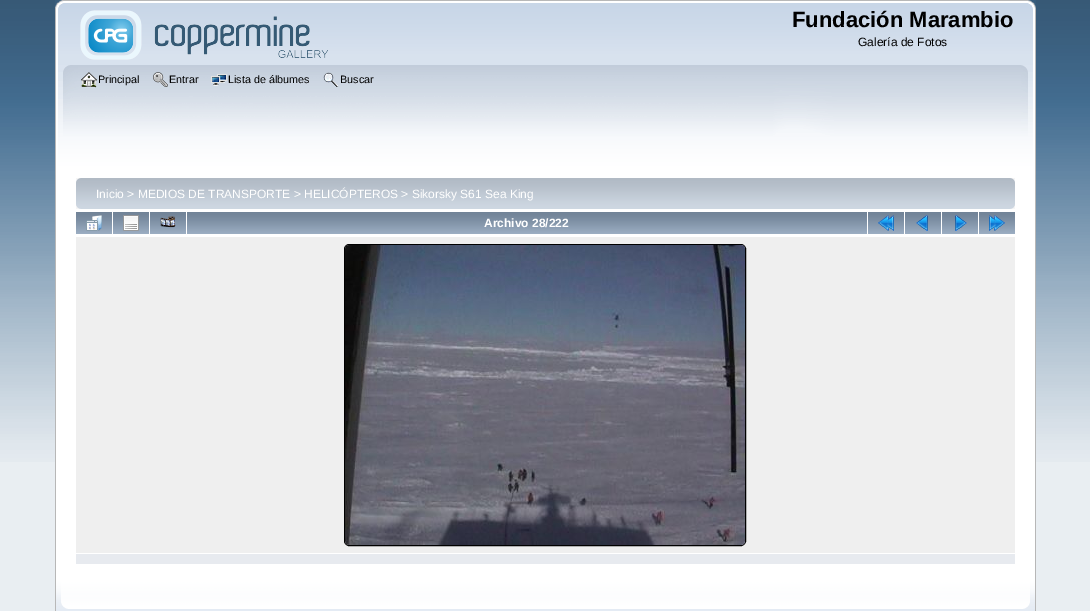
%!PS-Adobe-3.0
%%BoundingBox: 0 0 1090 611
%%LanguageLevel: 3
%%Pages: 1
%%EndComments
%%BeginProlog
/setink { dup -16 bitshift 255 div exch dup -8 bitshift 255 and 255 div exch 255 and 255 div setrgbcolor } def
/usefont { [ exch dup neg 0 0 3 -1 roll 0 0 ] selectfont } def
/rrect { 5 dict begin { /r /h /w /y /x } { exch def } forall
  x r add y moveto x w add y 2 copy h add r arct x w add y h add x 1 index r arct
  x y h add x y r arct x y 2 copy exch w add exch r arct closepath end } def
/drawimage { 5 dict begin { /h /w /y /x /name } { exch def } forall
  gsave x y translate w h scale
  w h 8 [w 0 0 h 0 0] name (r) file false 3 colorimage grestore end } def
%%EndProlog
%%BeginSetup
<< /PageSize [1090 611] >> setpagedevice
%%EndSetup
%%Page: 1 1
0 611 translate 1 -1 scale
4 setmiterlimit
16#E9EEF2 setink
0 0 1090 611 rectfill
(img1.raw) 0 0 1090 462 drawimage
(img2.raw) 55 0 973 65 drawimage
(img3.raw) 1028 0 8 65 drawimage
(img4.raw) 80 10 248 50 drawimage
/LiberationSans-Bold 22 usefont
16#000000 setink
792 27 moveto (Fundación Marambio) show
/LiberationSans-Regular 12 usefont
858 46 moveto (Galería de Fotos) show
(img5.raw) 55 65 966 110 drawimage
(img6.raw) 1021 65 15 110 drawimage
(img7.raw) 81 72 16 16 drawimage
/LiberationSans-Regular 10.75 usefont
98 83 moveto (Principal) show
(img8.raw) 153 72 15 15 drawimage
169 83 moveto (Entrar) show
(img9.raw) 211 74 16 12 drawimage
228 83 moveto (Lista de álbumes) show
(img10.raw) 323 72 16 15 drawimage
340 83 moveto (Buscar) show
[
    [56 175 979 405 16#FFFFFF]
    [55 175 1 405 16#B7B7B7]
    [1035 175 1 405 16#B7B7B7]
] { aload pop setink rectfill } forall
(img11.raw) 76 178 934 31 drawimage
(img12.raw) 1010 178 5 31 drawimage
/LiberationSans-Regular 12 usefont
16#FFFFFF setink
96 198 moveto (Inicio > MEDIOS DE TRANSPORTE > HELICÓPTEROS > Sikorsky S61 Sea King) show
(img13.raw) 76 212 36 22 drawimage
(img14.raw) 86 215 16 16 drawimage
(img13.raw) 113 212 36 22 drawimage
(img15.raw) 123 215 16 16 drawimage
(img13.raw) 150 212 36 22 drawimage
(img16.raw) 160 216 16 12 drawimage
(img17.raw) 187 212 680 22 drawimage
/LiberationSans-Bold 12 usefont
484 227 moveto (Archivo 28/222) show
(img13.raw) 868 212 36 22 drawimage
(img18.raw) 878 215 16 16 drawimage
(img13.raw) 905 212 36 22 drawimage
(img19.raw) 916 215 12 16 drawimage
(img13.raw) 942 212 36 22 drawimage
(img20.raw) 955 215 12 16 drawimage
(img13.raw) 979 212 36 22 drawimage
(img21.raw) 989 215 16 16 drawimage
16#EFEFEF setink
76 237 939 316 rectfill
16#000000 setink
344.5 244.5 401 301 4.5 rrect stroke
(img22.raw) 345 245 400 300 drawimage
16#E7EAEF setink
76 554 939 10 rectfill
(img23.raw) 55 580 968 31 drawimage
(img24.raw) 1023 580 13 31 drawimage
showpage
%%EOF
